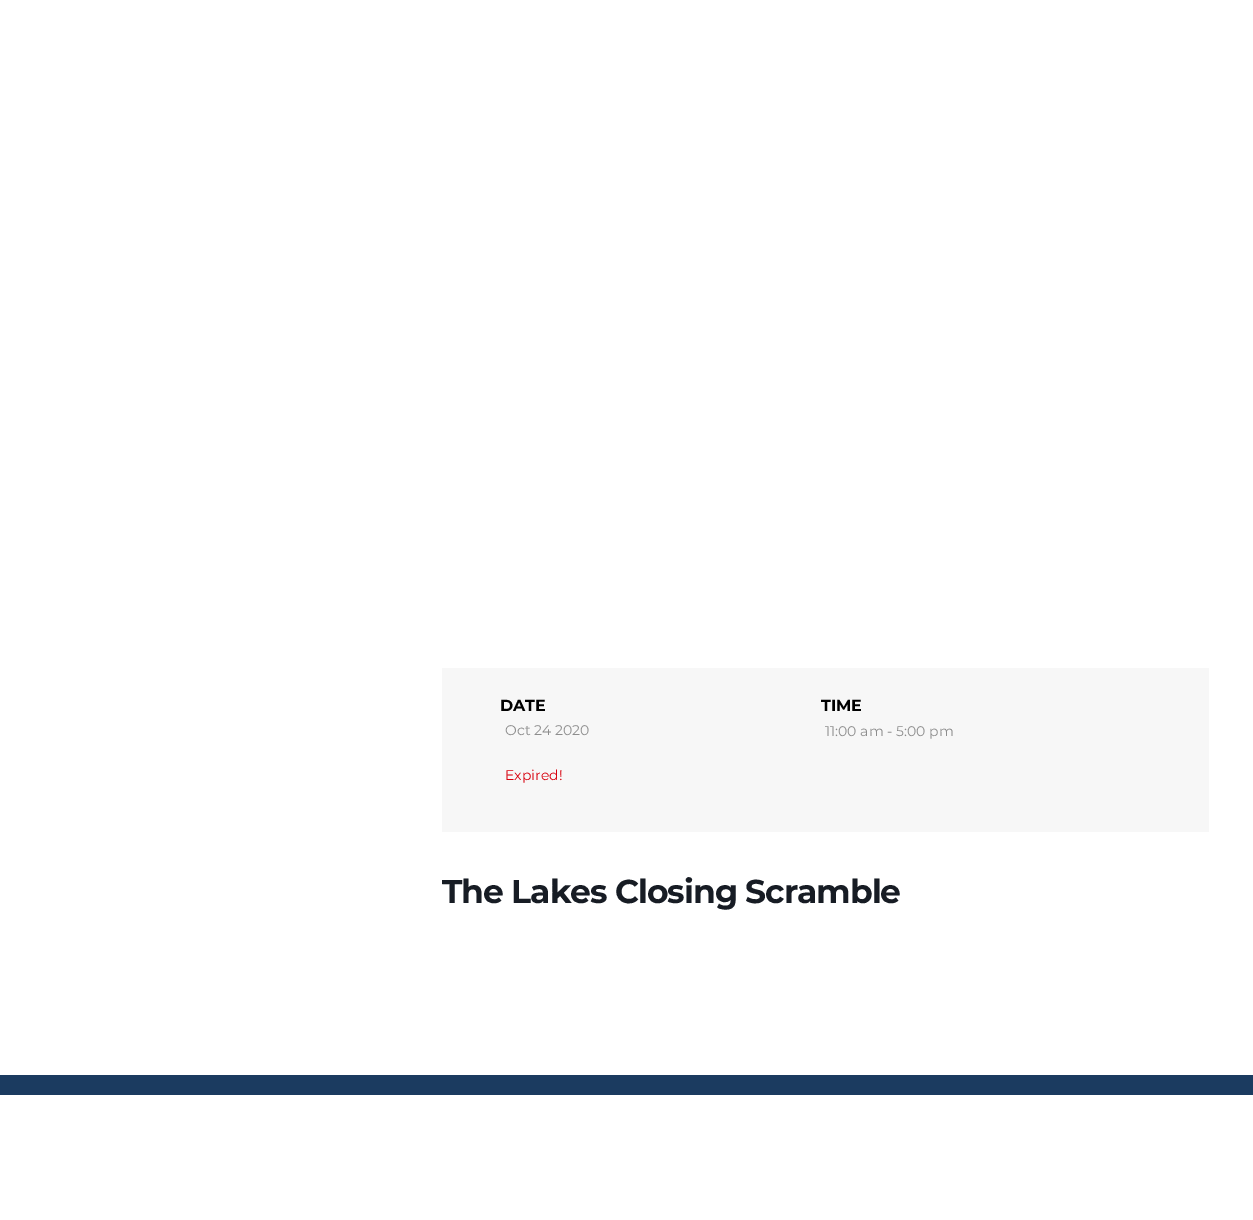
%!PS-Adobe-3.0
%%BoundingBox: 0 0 1253 1220
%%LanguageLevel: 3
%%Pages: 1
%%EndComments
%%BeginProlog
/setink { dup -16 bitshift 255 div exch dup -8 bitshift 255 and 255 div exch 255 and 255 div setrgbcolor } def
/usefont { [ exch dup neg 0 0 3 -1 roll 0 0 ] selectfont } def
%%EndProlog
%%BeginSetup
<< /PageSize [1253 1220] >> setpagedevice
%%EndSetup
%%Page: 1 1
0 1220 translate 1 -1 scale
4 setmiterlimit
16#FFFFFF setink
0 0 1253 1220 rectfill
16#F7F7F7 setink
442 668 767 164 rectfill
/Montserrat-Bold 16 usefont
16#000000 setink
500 711 moveto (DATE) show
/Montserrat-Regular 14 usefont
16#8D8D8D setink
505 735 moveto (Oct 24 2020) show
16#D8000C setink
505 780 moveto (Expired!) show
/Montserrat-Bold 16 usefont
16#000000 setink
821 711 moveto (TIME) show
/Montserrat-Regular 14 usefont
16#8D8D8D setink
825 736 moveto (11:00 am - 5:00 pm) show
/Montserrat-Bold 33 usefont
16#171C24 setink
442 903 moveto -1 0 (The Lakes Closing Scramble) ashow
16#1B3B60 setink
0 1075 1253 20 rectfill
showpage
%%EOF
